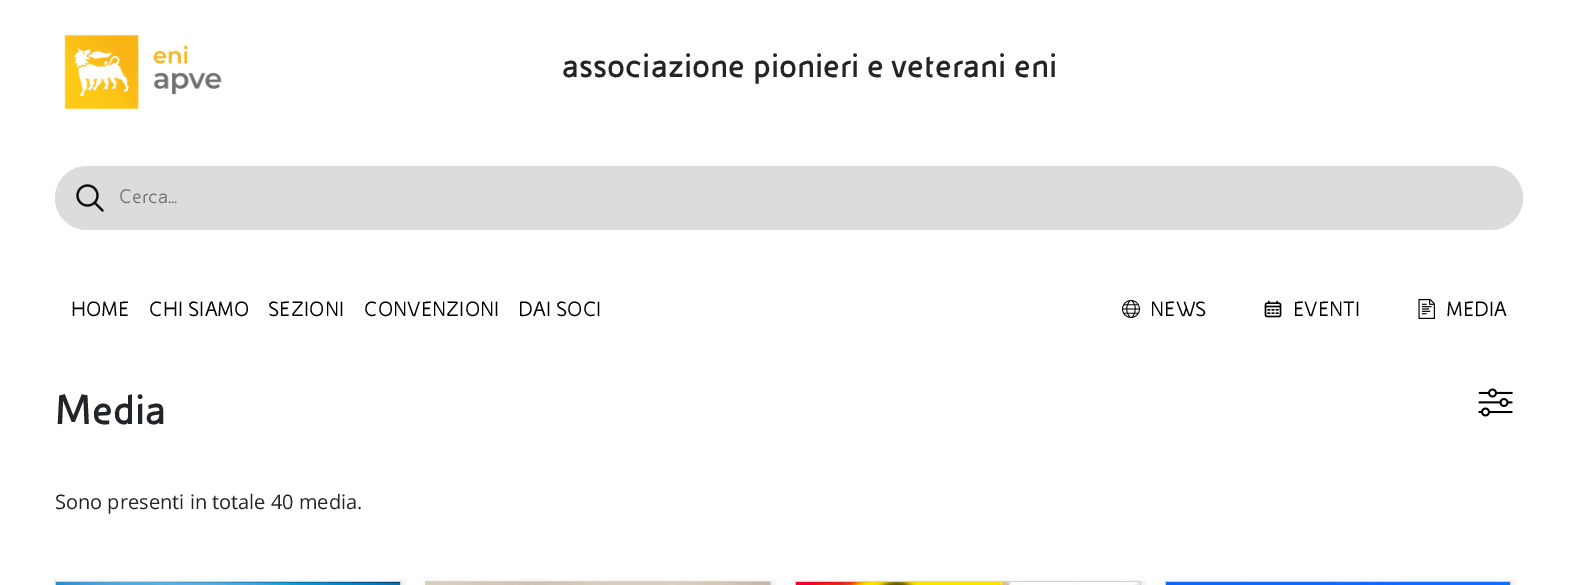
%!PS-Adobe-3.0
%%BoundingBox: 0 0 1578 585
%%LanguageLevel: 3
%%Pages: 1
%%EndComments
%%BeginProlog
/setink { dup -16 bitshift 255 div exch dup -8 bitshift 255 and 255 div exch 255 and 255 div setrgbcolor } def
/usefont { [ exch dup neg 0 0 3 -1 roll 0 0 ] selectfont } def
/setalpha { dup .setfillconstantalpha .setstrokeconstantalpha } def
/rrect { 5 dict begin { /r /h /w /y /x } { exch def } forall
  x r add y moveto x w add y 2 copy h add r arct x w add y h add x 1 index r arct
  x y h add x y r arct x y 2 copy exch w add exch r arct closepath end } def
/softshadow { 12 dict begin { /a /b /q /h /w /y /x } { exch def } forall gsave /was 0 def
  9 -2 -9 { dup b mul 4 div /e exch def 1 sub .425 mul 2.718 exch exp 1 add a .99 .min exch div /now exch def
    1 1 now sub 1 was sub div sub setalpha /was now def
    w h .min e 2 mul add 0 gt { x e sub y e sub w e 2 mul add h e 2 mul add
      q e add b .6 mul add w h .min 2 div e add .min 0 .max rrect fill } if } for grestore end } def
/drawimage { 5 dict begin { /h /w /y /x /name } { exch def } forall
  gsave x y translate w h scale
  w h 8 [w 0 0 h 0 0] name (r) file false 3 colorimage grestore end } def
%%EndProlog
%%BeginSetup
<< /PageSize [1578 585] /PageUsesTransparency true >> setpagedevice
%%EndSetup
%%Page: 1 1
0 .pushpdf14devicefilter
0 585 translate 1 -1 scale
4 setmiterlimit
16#FFFFFF setink
0 0 1578 585 rectfill
(img1.raw) 64 34 158 76 drawimage
/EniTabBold-Bold 36 usefont
16#212529 setink
562 77 moveto (associazione pionieri e veterani eni) show
16#DCDCDC setink
55 166 1468 64 32 rrect fill
(img2.raw) 76 184 28 28 drawimage
/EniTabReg-Regular 21 usefont
16#757575 setink
119 203 moveto (Cerca...) show
/EniTabReg-Regular 22 usefont
16#000000 setink
[
    [(HOME) 71 316]
    [(CHI SIAMO) 149 316]
    [(SEZIONI) 268 316]
    [(CONVENZIONI) 364 316]
    [(DAI SOCI) 518 316]
] { aload pop moveto show } forall
(img3.raw) 1122 300 18 18 drawimage
1150 316 moveto (NEWS) show
(img4.raw) 1264 300 18 18 drawimage
1293 316 moveto (EVENTI) show
(img5.raw) 1418 299 17 20 drawimage
1446 316 moveto (MEDIA) show
/EniTabBold-Bold 45 usefont
16#212529 setink
55 424 moveto (Media) show
/OpenSans-Regular 20 usefont
55 509 moveto (Sono presenti in totale 40 media.) show
(img6.raw) 1478 388 35 29 drawimage
16#EFEFEF setink
55 581 350 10 0 2 1 softshadow
16#D2D2D2 setink
55.5 581.5 345 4 rectstroke
(img7.raw) 56 582 344 3 drawimage
16#EFEFEF setink
425 581 350 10 0 2 1 softshadow
16#D2D2D2 setink
425.5 581.5 345 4 rectstroke
(img8.raw) 426 582 344 3 drawimage
16#EFEFEF setink
795 581 350 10 0 2 1 softshadow
16#D2D2D2 setink
795.5 581.5 345 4 rectstroke
(img9.raw) 796 582 344 3 drawimage
16#EFEFEF setink
1165 581 350 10 0 2 1 softshadow
16#D2D2D2 setink
1165.5 581.5 345 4 rectstroke
(img10.raw) 1166 582 344 3 drawimage
.poppdf14devicefilter showpage
%%EOF
